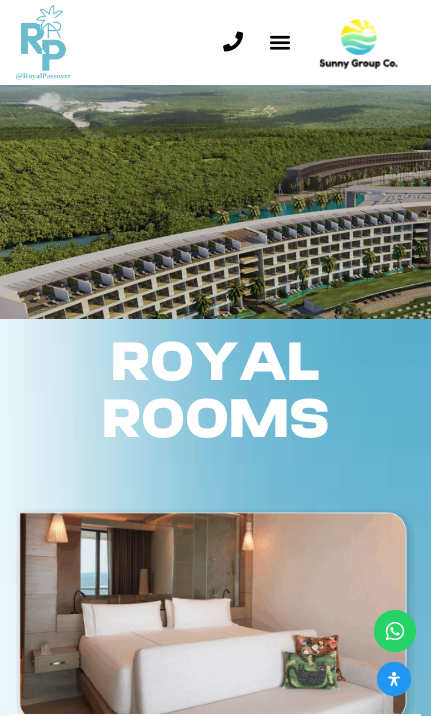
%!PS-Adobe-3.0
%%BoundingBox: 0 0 431 716
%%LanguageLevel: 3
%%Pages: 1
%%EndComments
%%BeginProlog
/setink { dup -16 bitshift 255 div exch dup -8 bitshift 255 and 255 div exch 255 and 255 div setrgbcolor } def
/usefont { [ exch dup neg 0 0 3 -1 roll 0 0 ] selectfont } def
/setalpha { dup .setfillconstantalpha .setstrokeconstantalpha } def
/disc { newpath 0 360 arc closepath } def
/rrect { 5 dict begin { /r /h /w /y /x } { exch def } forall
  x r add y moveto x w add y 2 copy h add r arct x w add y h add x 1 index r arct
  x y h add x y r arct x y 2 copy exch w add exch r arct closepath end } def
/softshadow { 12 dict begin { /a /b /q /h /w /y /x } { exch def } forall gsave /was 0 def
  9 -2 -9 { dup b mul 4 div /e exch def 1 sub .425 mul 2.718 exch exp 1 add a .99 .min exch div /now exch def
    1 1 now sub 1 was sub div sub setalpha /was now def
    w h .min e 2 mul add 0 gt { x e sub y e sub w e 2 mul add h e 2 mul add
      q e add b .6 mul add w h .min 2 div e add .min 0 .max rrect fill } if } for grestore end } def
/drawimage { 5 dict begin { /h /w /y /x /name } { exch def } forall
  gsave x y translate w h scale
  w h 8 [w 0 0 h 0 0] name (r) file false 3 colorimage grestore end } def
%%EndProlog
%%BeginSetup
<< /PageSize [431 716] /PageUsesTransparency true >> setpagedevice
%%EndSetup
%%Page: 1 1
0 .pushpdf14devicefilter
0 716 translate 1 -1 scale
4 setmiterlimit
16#FFFFFF setink
0 0 431 716 rectfill
(img1.raw) 0 319 431 397 drawimage
(img6.raw) 0 85 431 234 drawimage
16#000000 setink
0 0 431 85 0 19 0.1 softshadow
16#FFFFFF setink
0 0 431 85 rectfill
(img2.raw) 16 5 55 75 drawimage
(img3.raw) 223 31 20 21 drawimage
(img4.raw) 269 35 22 15 drawimage
(img5.raw) 319 18 79 52 drawimage
/NataSans-Black 57 usefont
111 380 moveto (ROYAL) show
102 437 moveto (ROOMS) show
(img7.raw) 16 509 399 205 drawimage
10 714 411 2 rectfill
16#25D366 setink
395 631 21 disc fill
(img8.raw) 385 621 20 20 drawimage
16#2196F3 setink
394 679 17 disc fill
(img9.raw) 388 672 12 14 drawimage
.poppdf14devicefilter showpage
%%EOF
